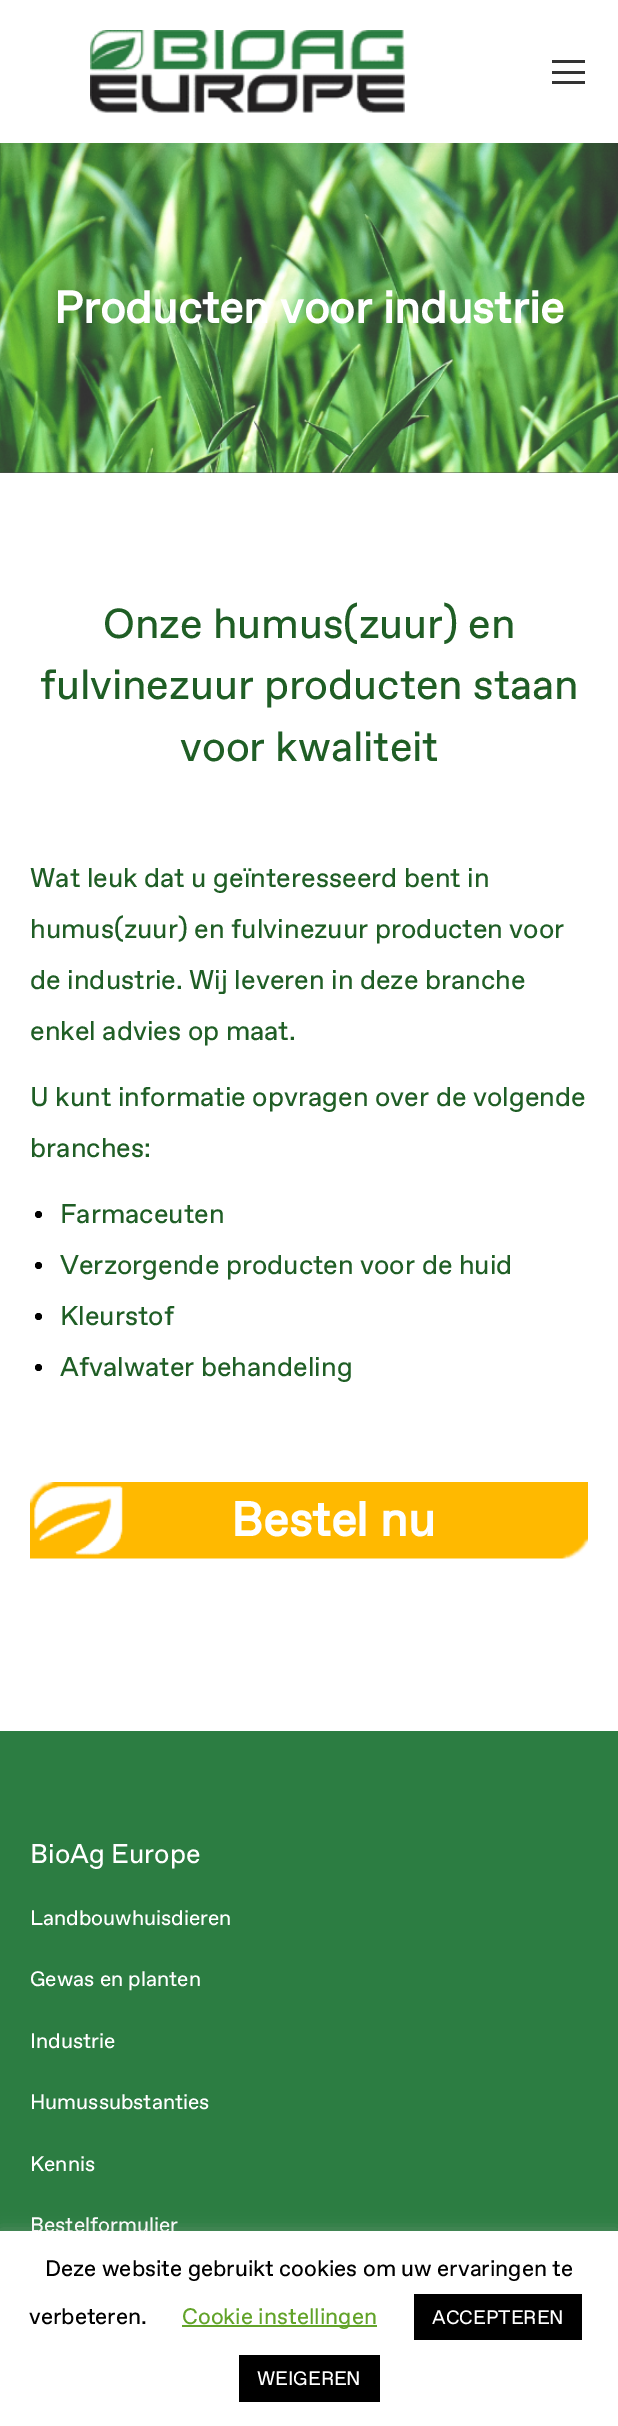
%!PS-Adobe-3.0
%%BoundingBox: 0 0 618 2426
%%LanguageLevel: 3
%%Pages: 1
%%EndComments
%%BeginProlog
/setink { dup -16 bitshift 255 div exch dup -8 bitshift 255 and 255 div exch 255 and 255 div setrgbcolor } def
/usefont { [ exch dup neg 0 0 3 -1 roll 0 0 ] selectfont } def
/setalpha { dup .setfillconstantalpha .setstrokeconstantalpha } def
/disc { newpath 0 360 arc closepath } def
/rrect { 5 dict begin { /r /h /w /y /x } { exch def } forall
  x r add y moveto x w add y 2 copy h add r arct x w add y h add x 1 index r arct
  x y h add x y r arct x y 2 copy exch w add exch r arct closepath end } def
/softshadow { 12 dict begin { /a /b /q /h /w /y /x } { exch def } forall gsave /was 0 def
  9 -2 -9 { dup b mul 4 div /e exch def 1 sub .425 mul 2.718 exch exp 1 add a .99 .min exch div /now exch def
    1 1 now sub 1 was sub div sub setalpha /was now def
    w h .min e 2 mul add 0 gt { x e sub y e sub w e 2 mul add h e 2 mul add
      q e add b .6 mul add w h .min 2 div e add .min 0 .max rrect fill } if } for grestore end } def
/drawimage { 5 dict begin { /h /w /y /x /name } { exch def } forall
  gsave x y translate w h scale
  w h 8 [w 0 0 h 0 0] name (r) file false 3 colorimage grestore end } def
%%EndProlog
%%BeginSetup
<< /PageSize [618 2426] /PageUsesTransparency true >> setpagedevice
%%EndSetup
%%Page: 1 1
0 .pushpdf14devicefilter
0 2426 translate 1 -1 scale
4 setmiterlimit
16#FFFFFF setink
0 0 618 2426 rectfill
16#4E4E4E setink
0 472 618 1 rectfill
(img2.raw) 0 143 618 330 drawimage
16#000000 setink
-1 -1 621 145 0 11 0.07 softshadow
16#FFFFFF setink
0 0 618 143 rectfill
(img1.raw) 90 30 315 83 drawimage
[
    [552 60 33 3 16#333333]
    [552 71 33 3 16#333333]
    [552 81 33 3 16#333333]
] { aload pop setink rectfill } forall
/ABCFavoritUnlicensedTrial-Bold 45 usefont
16#FFFFFF setink
54 323 moveto (Producten voor industrie) show
/ABCFavoritUnlicensedTrial-Regular 42 usefont
16#1F5E25 setink
[
    [(Onze humus\(zuur\) en) 103 638]
    [(fulvinezuur producten staan) 40 699]
    [(voor kwaliteit) 180 761]
] { aload pop moveto show } forall
/ABCFavoritUnlicensedTrial-Regular 27 usefont
[
    [(Wat leuk dat u geïnteresseerd bent in) 30 887]
    [(humus\(zuur\) en fulvinezuur producten voor) 30 938]
    [(de industrie. Wij leveren in deze branche) 30 989]
    [(enkel advies op maat.) 30 1040]
    [(U kunt informatie opvragen over de volgende) 30 1106]
    [(branches:) 30 1157]
] { aload pop moveto show } forall
16#000000 setink
38.5 1214.5 3.5 disc fill
16#1F5E25 setink
60 1223 moveto (Farmaceuten) show
16#000000 setink
38.5 1265.5 3.5 disc fill
16#1F5E25 setink
60 1274 moveto (Verzorgende producten voor de huid) show
16#000000 setink
38.5 1316.5 3.5 disc fill
16#1F5E25 setink
60 1325 moveto (Kleurstof) show
16#000000 setink
38.5 1367.5 3.5 disc fill
16#1F5E25 setink
60 1376 moveto (Afvalwater behandeling) show
(img3.raw) 30 1482 558 77 drawimage
/ABCFavoritUnlicensedTrial-Bold 48 usefont
16#FFFFFF setink
231 1536 moveto (Bestel nu) show
16#2C7D42 setink
0 1731 618 500 rectfill
/ABCFavoritUnlicensedTrial-Regular 27 usefont
16#FFFFFF setink
30 1863 moveto (BioAg Europe) show
/ABCFavoritUnlicensedTrial-Regular 21 usefont
[
    [(Landbouwhuisdieren) 30 1925]
    [(Gewas en planten) 30 1986]
    [(Industrie) 30 2048]
    [(Humussubstanties) 30 2109]
    [(Kennis) 30 2171]
    [(Bestelformulier) 30 2232]
] { aload pop moveto show } forall
16#ACABAB setink
0 2229 618 197 0 7.5 0.3 softshadow
16#FFFFFF setink
0 2231 618 195 rectfill
/ABCFavoritUnlicensedTrial-Regular 22.5 usefont
16#000000 setink
45 2276 moveto (Deze website gebruikt cookies om uw ervaringen te) show
29 2324 moveto (verbeteren.) show
16#62A329 setink
182 2325 195 2 rectfill
182 2324 moveto (Cookie instellingen) show
16#000000 setink
414 2294 168 46 rectfill
/ABCFavoritUnlicensedTrial-Regular 19.5 usefont
16#FFFFFF setink
432 2324 moveto (ACCEPTEREN) show
16#000000 setink
239 2355 141 47 rectfill
16#FFFFFF setink
257 2385 moveto (WEIGEREN) show
.poppdf14devicefilter showpage
%%EOF
